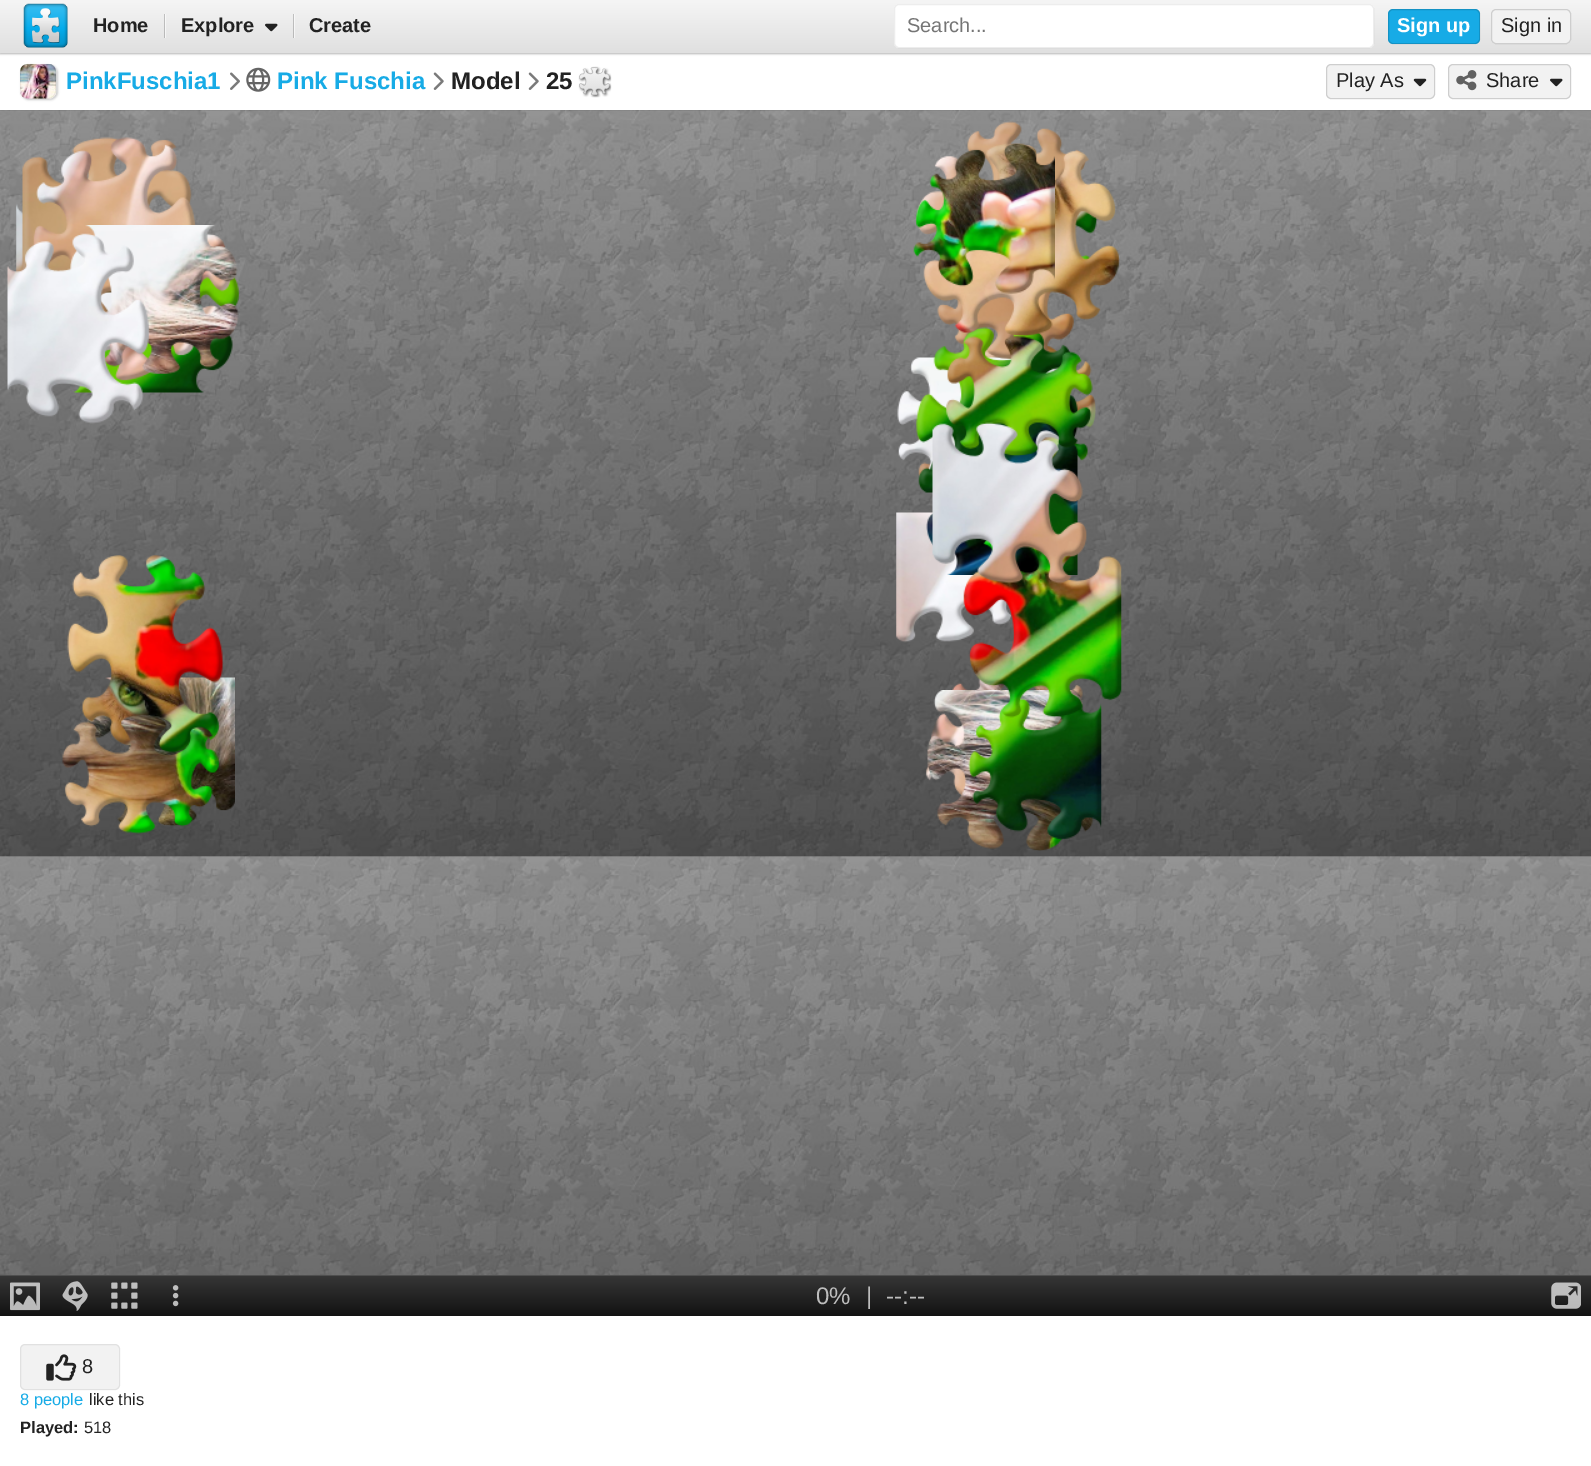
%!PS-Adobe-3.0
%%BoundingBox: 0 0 1591 1466
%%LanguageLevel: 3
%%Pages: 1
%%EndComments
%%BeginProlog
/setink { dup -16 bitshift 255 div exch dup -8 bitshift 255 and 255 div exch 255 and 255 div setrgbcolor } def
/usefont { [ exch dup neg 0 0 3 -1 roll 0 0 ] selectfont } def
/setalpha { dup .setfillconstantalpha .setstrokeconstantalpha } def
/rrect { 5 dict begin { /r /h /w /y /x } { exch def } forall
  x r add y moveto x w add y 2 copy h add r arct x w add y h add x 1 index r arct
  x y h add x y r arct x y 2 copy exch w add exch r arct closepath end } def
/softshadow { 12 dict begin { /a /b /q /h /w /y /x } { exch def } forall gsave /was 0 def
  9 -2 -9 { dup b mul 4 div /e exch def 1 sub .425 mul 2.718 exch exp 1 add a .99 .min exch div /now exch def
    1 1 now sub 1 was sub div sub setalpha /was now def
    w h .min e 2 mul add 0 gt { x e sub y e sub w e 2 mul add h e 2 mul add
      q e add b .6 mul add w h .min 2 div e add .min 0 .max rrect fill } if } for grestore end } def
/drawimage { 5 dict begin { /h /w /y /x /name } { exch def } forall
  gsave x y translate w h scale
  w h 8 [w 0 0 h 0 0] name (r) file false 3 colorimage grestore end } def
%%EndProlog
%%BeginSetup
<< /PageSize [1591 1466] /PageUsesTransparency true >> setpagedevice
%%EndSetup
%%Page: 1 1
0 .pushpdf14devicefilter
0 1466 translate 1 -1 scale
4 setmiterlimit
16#FFFFFF setink
0 0 1591 1466 rectfill
16#000000 setink
0 1 1591 53 0 1 0.3 softshadow
gsave 0 0 moveto 1591 0 lineto 1591 53 lineto 0 53 lineto closepath clip newpath
<< /ShadingType 2 /ColorSpace /DeviceRGB /Coords [796 0 796 53] /Extend [true true] /Function << /FunctionType 2 /Domain [0 1] /C0 [0.961 0.961 0.961] /C1 [0.878 0.878 0.878] /N 1 >> >> shfill grestore
gsave 293 14 moveto 294 14 lineto 294 38 lineto 293 38 lineto closepath clip newpath
<< /ShadingType 2 /ColorSpace /DeviceRGB /Coords [796 0 796 53] /Extend [true true] /Function << /FunctionType 2 /Domain [0 1] /C0 [0.769 0.769 0.769] /C1 [0.702 0.702 0.702] /N 1 >> >> shfill grestore
gsave 294 14 moveto 295 14 lineto 295 38 lineto 294 38 lineto closepath clip newpath
<< /ShadingType 2 /ColorSpace /DeviceRGB /Coords [796 0 796 53] /Extend [true true] /Function << /FunctionType 2 /Domain [0 1] /C0 [0.984 0.984 0.984] /C1 [0.953 0.953 0.953] /N 1 >> >> shfill grestore
gsave 164 14 moveto 165 14 lineto 165 38 lineto 164 38 lineto closepath clip newpath
<< /ShadingType 2 /ColorSpace /DeviceRGB /Coords [796 0 796 53] /Extend [true true] /Function << /FunctionType 2 /Domain [0 1] /C0 [0.769 0.769 0.769] /C1 [0.702 0.702 0.702] /N 1 >> >> shfill grestore
gsave 165 14 moveto 166 14 lineto 166 38 lineto 165 38 lineto closepath clip newpath
<< /ShadingType 2 /ColorSpace /DeviceRGB /Coords [796 0 796 53] /Extend [true true] /Function << /FunctionType 2 /Domain [0 1] /C0 [0.984 0.984 0.984] /C1 [0.953 0.953 0.953] /N 1 >> >> shfill grestore
(img1.raw) 23 3 45 45 drawimage
/LiberationSans-Bold 20 usefont
16#222222 setink
93 32 moveto (Home) show
181 32 moveto (Explore) show
(img2.raw) 265 23 13 9 drawimage
309 32 moveto (Create) show
16#FFFFFF setink
894 4 480 44 5 rrect fill
0.07 setalpha
16#000000 setink
894.5 4.5 479 43 4.5 rrect stroke
/LiberationSans-Regular 20 usefont
1 setalpha
16#757575 setink
907 32 moveto (Search...) show
16#17ABE6 setink
1388 9 92 35 5 rrect fill
0.15 setalpha
16#000000 setink
1388.5 9.5 91 34 4.5 rrect stroke
/LiberationSans-Bold 20 usefont
1 setalpha
16#FFFFFF setink
1397 32 moveto (Sign up) show
16#F2F2F2 setink
1491 9 80 35 5 rrect fill
0.15 setalpha
16#000000 setink
1491.5 9.5 79 34 4.5 rrect stroke
/LiberationSans-Regular 20 usefont
1 setalpha
16#222222 setink
1501 32 moveto (Sign in) show
gsave
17 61 moveto 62 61 lineto 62 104 lineto 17 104 lineto closepath 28 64 moveto 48 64 lineto 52.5 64 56 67.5 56 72 curveto 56 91 lineto 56 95.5 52.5 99 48 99 curveto 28 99 lineto 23.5 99 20 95.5 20 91 curveto 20 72 lineto 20 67.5 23.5 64 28 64 curveto closepath eoclip newpath
16#000000 setink
21 65 37 35 8 1 0.2 softshadow
grestore
16#F0F0F0 setink
20 64 36 35 8 rrect fill
(img3.raw) 20 63 37 36 drawimage
0.07 setalpha
16#000000 setink
20.5 64.5 35 34 7.5 rrect stroke
/LiberationSans-Bold 24 usefont
1 setalpha
16#17ABE6 setink
66 89 moveto (PinkFuschia1) show
(img4.raw) 230 72 10 18 drawimage
(img5.raw) 246 67 25 25 drawimage
277 89 moveto (Pink Fuschia) show
(img6.raw) 433 72 11 18 drawimage
16#222222 setink
451 89 moveto (Model) show
(img6.raw) 528 72 11 18 drawimage
546 89 moveto (25) show
(img7.raw) 578 66 34 32 drawimage
16#F2F2F2 setink
1326 64 109 35 5 rrect fill
0.15 setalpha
16#000000 setink
1326.5 64.5 108 34 4.5 rrect stroke
/LiberationSans-Regular 20 usefont
1 setalpha
16#222222 setink
1336 87 moveto (Play As) show
(img8.raw) 1413 78 14 9 drawimage
16#F2F2F2 setink
1448 64 123 35 5 rrect fill
0.15 setalpha
16#000000 setink
1448.5 64.5 122 34 4.5 rrect stroke
1 setalpha
(img9.raw) 1456 70 21 21 drawimage
16#222222 setink
1486 87 moveto (Share) show
(img10.raw) 1550 78 13 9 drawimage
(img11.raw) 0 110 1591 1165 drawimage
(img16.raw) 16 203 7 70 drawimage
(img21.raw) 73 247 166 146 drawimage
(img17.raw) 73 211 159 176 drawimage
(img12.raw) 22 137 170 156 drawimage
(img25.raw) 917 345 179 134 drawimage
(img26.raw) 897 357 180 114 drawimage
(img22.raw) 937 254 137 105 drawimage
(img13.raw) 964 121 134 140 drawimage
(img14.raw) 33 137 163 176 drawimage
(img30.raw) 896 512 116 131 drawimage
(img28.raw) 926 433 152 142 drawimage
(img23.raw) 916 327 163 166 drawimage
(img24.raw) 946 336 147 121 drawimage
(img18.raw) 916 143 204 194 drawimage
(img15.raw) 913 143 142 151 drawimage
(img19.raw) 70 225 169 149 drawimage
(img20.raw) 7 233 143 191 drawimage
(img33.raw) 926 678 157 119 drawimage
(img34.raw) 927 690 166 161 drawimage
(img36.raw) 968 692 134 148 drawimage
(img31.raw) 963 539 159 179 drawimage
(img27.raw) 932 422 155 162 drawimage
(img32.raw) 87 677 148 149 drawimage
(img29.raw) 67 555 157 198 drawimage
(img35.raw) 62 715 158 119 drawimage
gsave 0 1276 moveto 1591 1276 lineto 1591 1316 lineto 0 1316 lineto closepath clip newpath
<< /ShadingType 2 /ColorSpace /DeviceRGB /Coords [796 1276 796 1316] /Extend [true true] /Function << /FunctionType 2 /Domain [0 1] /C0 [0.212 0.212 0.212] /C1 [0.071 0.071 0.071] /N 1 >> >> shfill grestore
16#4F4F4F setink
0 1275 1591 1 rectfill
(img37.raw) 10 1282 30 29 drawimage
(img38.raw) 62 1281 26 30 drawimage
(img39.raw) 111 1282 27 27 drawimage
(img40.raw) 172 1285 7 22 drawimage
/LiberationSans-Regular 24 usefont
16#BDBDBD setink
[
    [(0%) 816 1304]
    [(|) 866 1304]
    [(--:--) 886 1304]
] { aload pop moveto show } forall
(img41.raw) 1551 1282 30 27 drawimage
16#F2F2F2 setink
20 1344 100 46 5 rrect fill
0.07 setalpha
16#000000 setink
20.5 1344.5 99 45 4.5 rrect stroke
1 setalpha
(img42.raw) 46 1354 31 27 drawimage
/LiberationSans-Regular 20 usefont
16#222222 setink
82 1373 moveto (8) show
/LiberationSans-Regular 16.5 usefont
16#17ABE6 setink
20 1405 moveto (8 people) show
16#222222 setink
89 1405 moveto (like this) show
/LiberationSans-Bold 16.5 usefont
20 1433 moveto (Played:) show
/LiberationSans-Regular 16.5 usefont
84 1433 moveto (518) show
.poppdf14devicefilter showpage
%%EOF
